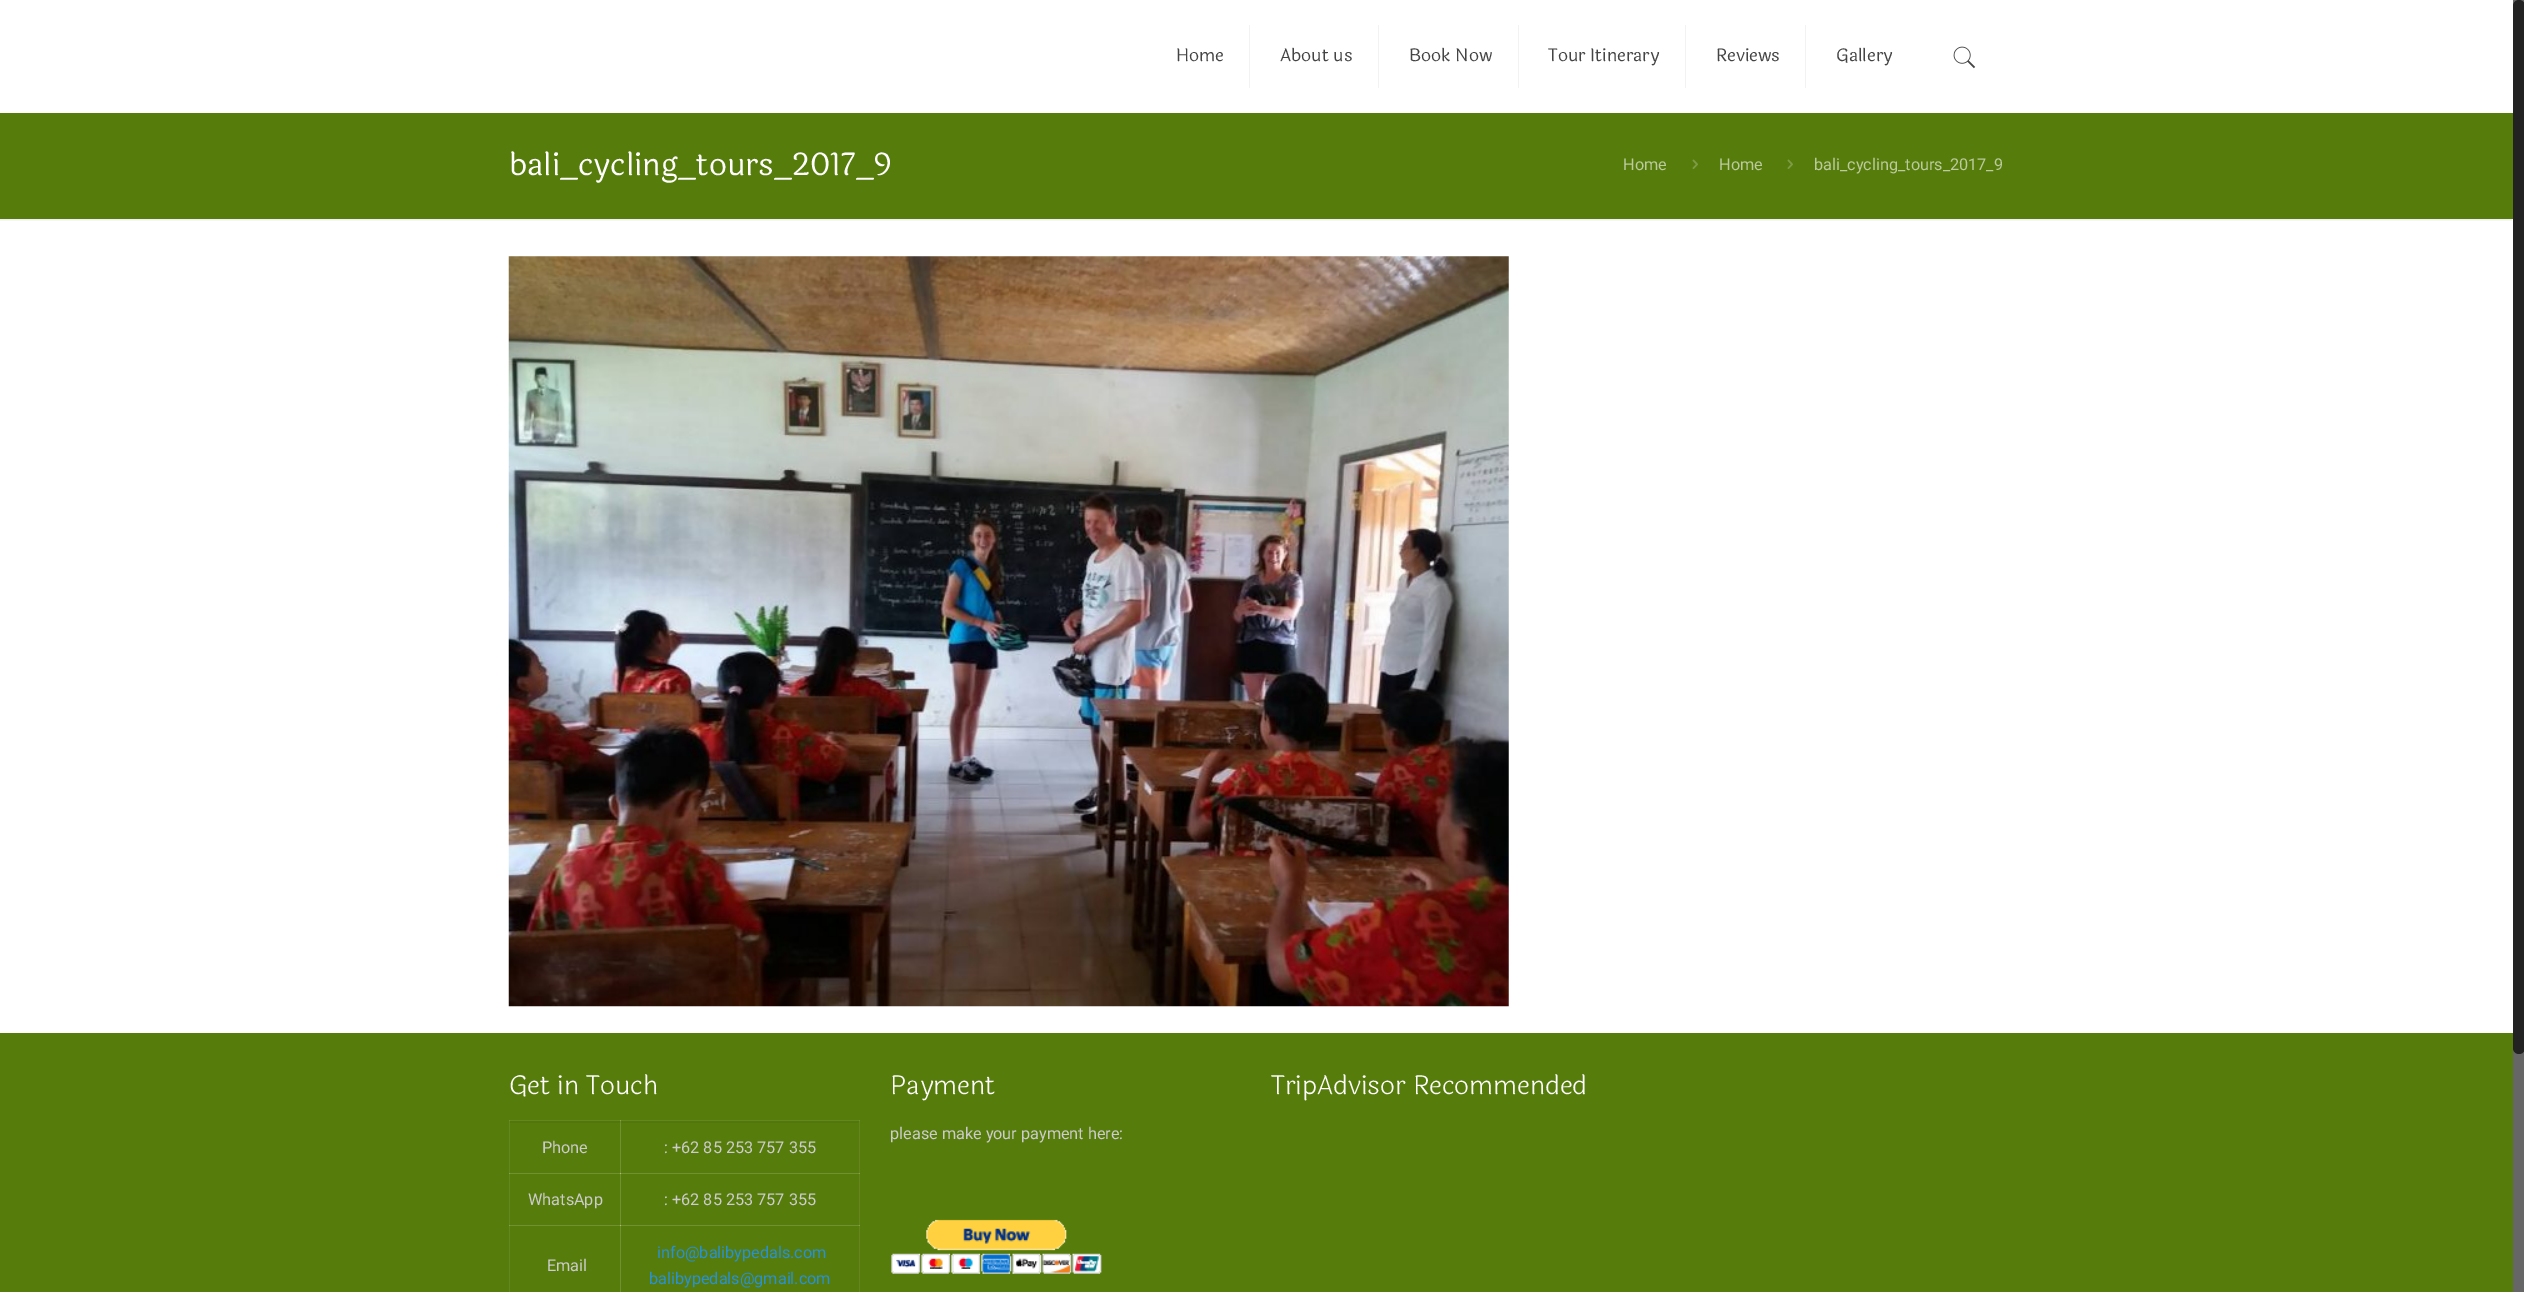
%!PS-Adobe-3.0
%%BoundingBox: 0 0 2524 1292
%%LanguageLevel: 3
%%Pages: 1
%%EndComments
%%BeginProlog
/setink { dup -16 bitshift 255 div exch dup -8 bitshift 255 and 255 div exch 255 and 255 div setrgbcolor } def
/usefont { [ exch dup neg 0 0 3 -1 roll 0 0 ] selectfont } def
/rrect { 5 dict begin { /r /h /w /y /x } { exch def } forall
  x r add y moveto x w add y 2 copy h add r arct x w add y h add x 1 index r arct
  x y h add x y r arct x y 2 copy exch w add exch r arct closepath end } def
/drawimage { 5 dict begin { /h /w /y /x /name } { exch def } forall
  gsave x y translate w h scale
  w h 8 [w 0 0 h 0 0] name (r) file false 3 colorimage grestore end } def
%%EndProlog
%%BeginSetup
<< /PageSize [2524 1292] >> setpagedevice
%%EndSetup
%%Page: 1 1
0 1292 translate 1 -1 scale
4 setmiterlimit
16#FFFFFF setink
0 0 2524 1292 rectfill
16#567C0B setink
0 113 2513 106 rectfill
16#F2F2F2 setink
1249 25 1 63 rectfill
/Laila-Regular 17.5 usefont
16#444444 setink
1176 61 moveto (Home) show
16#F2F2F2 setink
1378 25 1 63 rectfill
16#444444 setink
1280 61 moveto (About us) show
16#F2F2F2 setink
1518 25 1 63 rectfill
16#444444 setink
1409 61 moveto (Book Now) show
16#F2F2F2 setink
1685 25 1 63 rectfill
16#444444 setink
1548 61 moveto (Tour Itinerary) show
16#F2F2F2 setink
1805 25 1 63 rectfill
16#444444 setink
1716 61 moveto (Reviews) show
1836 61 moveto (Gallery) show
(img1.raw) 1953 46 23 23 drawimage
/Laila-Regular 31.25 usefont
16#FFFFFF setink
509 175 moveto (bali_cycling_tours_2017_9) show
/Roboto-Regular 16.25 usefont
16#BBCB9D setink
1623 170 moveto (Home) show
(img2.raw) 1692 159 6 10 drawimage
1719 170 moveto (Home) show
(img2.raw) 1787 159 6 10 drawimage
1814 170 moveto (bali_cycling_tours_2017_9) show
(img3.raw) 0 219 2512 2 drawimage
(img4.raw) 508 256 1001 751 drawimage
[
    [0 1033 2513 259 16#567C0B]
    [509 1120 1 172 16#64861F]
    [509 1120 112 1 16#64861F]
    [509 1120 1 1 16#709031]
    [620 1120 1 54 16#709031]
    [859 1120 1 172 16#64861F]
    [509 1173 112 1 16#709031]
    [509 1173 1 1 16#86A150]
    [620 1173 1 53 16#709031]
    [509 1225 112 1 16#709031]
    [509 1225 1 1 16#86A150]
    [620 1225 1 67 16#709031]
] { aload pop setink rectfill } forall
/Laila-Light 26.25 usefont
16#FFFFFF setink
509 1094 moveto (Get in Touch) show
16#52760A setink
510 1121 111 2 rectfill
16#6D8B30 setink
620 1121 1 2 rectfill
/Roboto-Regular 16.25 usefont
16#CCCCCC setink
542 1153 moveto (Phone) show
(img5.raw) 621 1121 238 2 drawimage
[
    [620 1120 240 1 16#64861F]
    [620 1120 1 1 16#86A150]
    [859 1120 1 1 16#709031]
] { aload pop setink rectfill } forall
16#CCCCCC setink
664 1153 moveto (: +62 85 253 757 355) show
528 1205 moveto (WhatsApp) show
[
    [620 1173 240 1 16#709031]
    [620 1173 1 1 16#A9BC82]
    [859 1173 1 1 16#86A150]
] { aload pop setink rectfill } forall
16#CCCCCC setink
664 1205 moveto (: +62 85 253 757 355) show
547 1271 moveto (Email) show
[
    [620 1225 240 1 16#709031]
    [620 1225 1 1 16#A9BC82]
    [859 1225 1 1 16#86A150]
] { aload pop setink rectfill } forall
16#2991D6 setink
657 1258 moveto (info@balibypedals.com) show
649 1284 moveto (balibypedals@gmail.com) show
/Laila-Light 26.25 usefont
16#FFFFFF setink
890 1094 moveto (Payment) show
/Roboto-Regular 16.25 usefont
16#CCCCCC setink
890 1139 moveto (please make your payment here:) show
(img6.raw) 891 1219 211 55 drawimage
/Laila-Light 26.25 usefont
16#FFFFFF setink
1271 1094 moveto (TripAdvisor Recommended) show
16#666666 setink
2513 0 11 1292 rectfill
16#222222 setink
2513 0 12 1054 6 rrect fill
showpage
%%EOF
